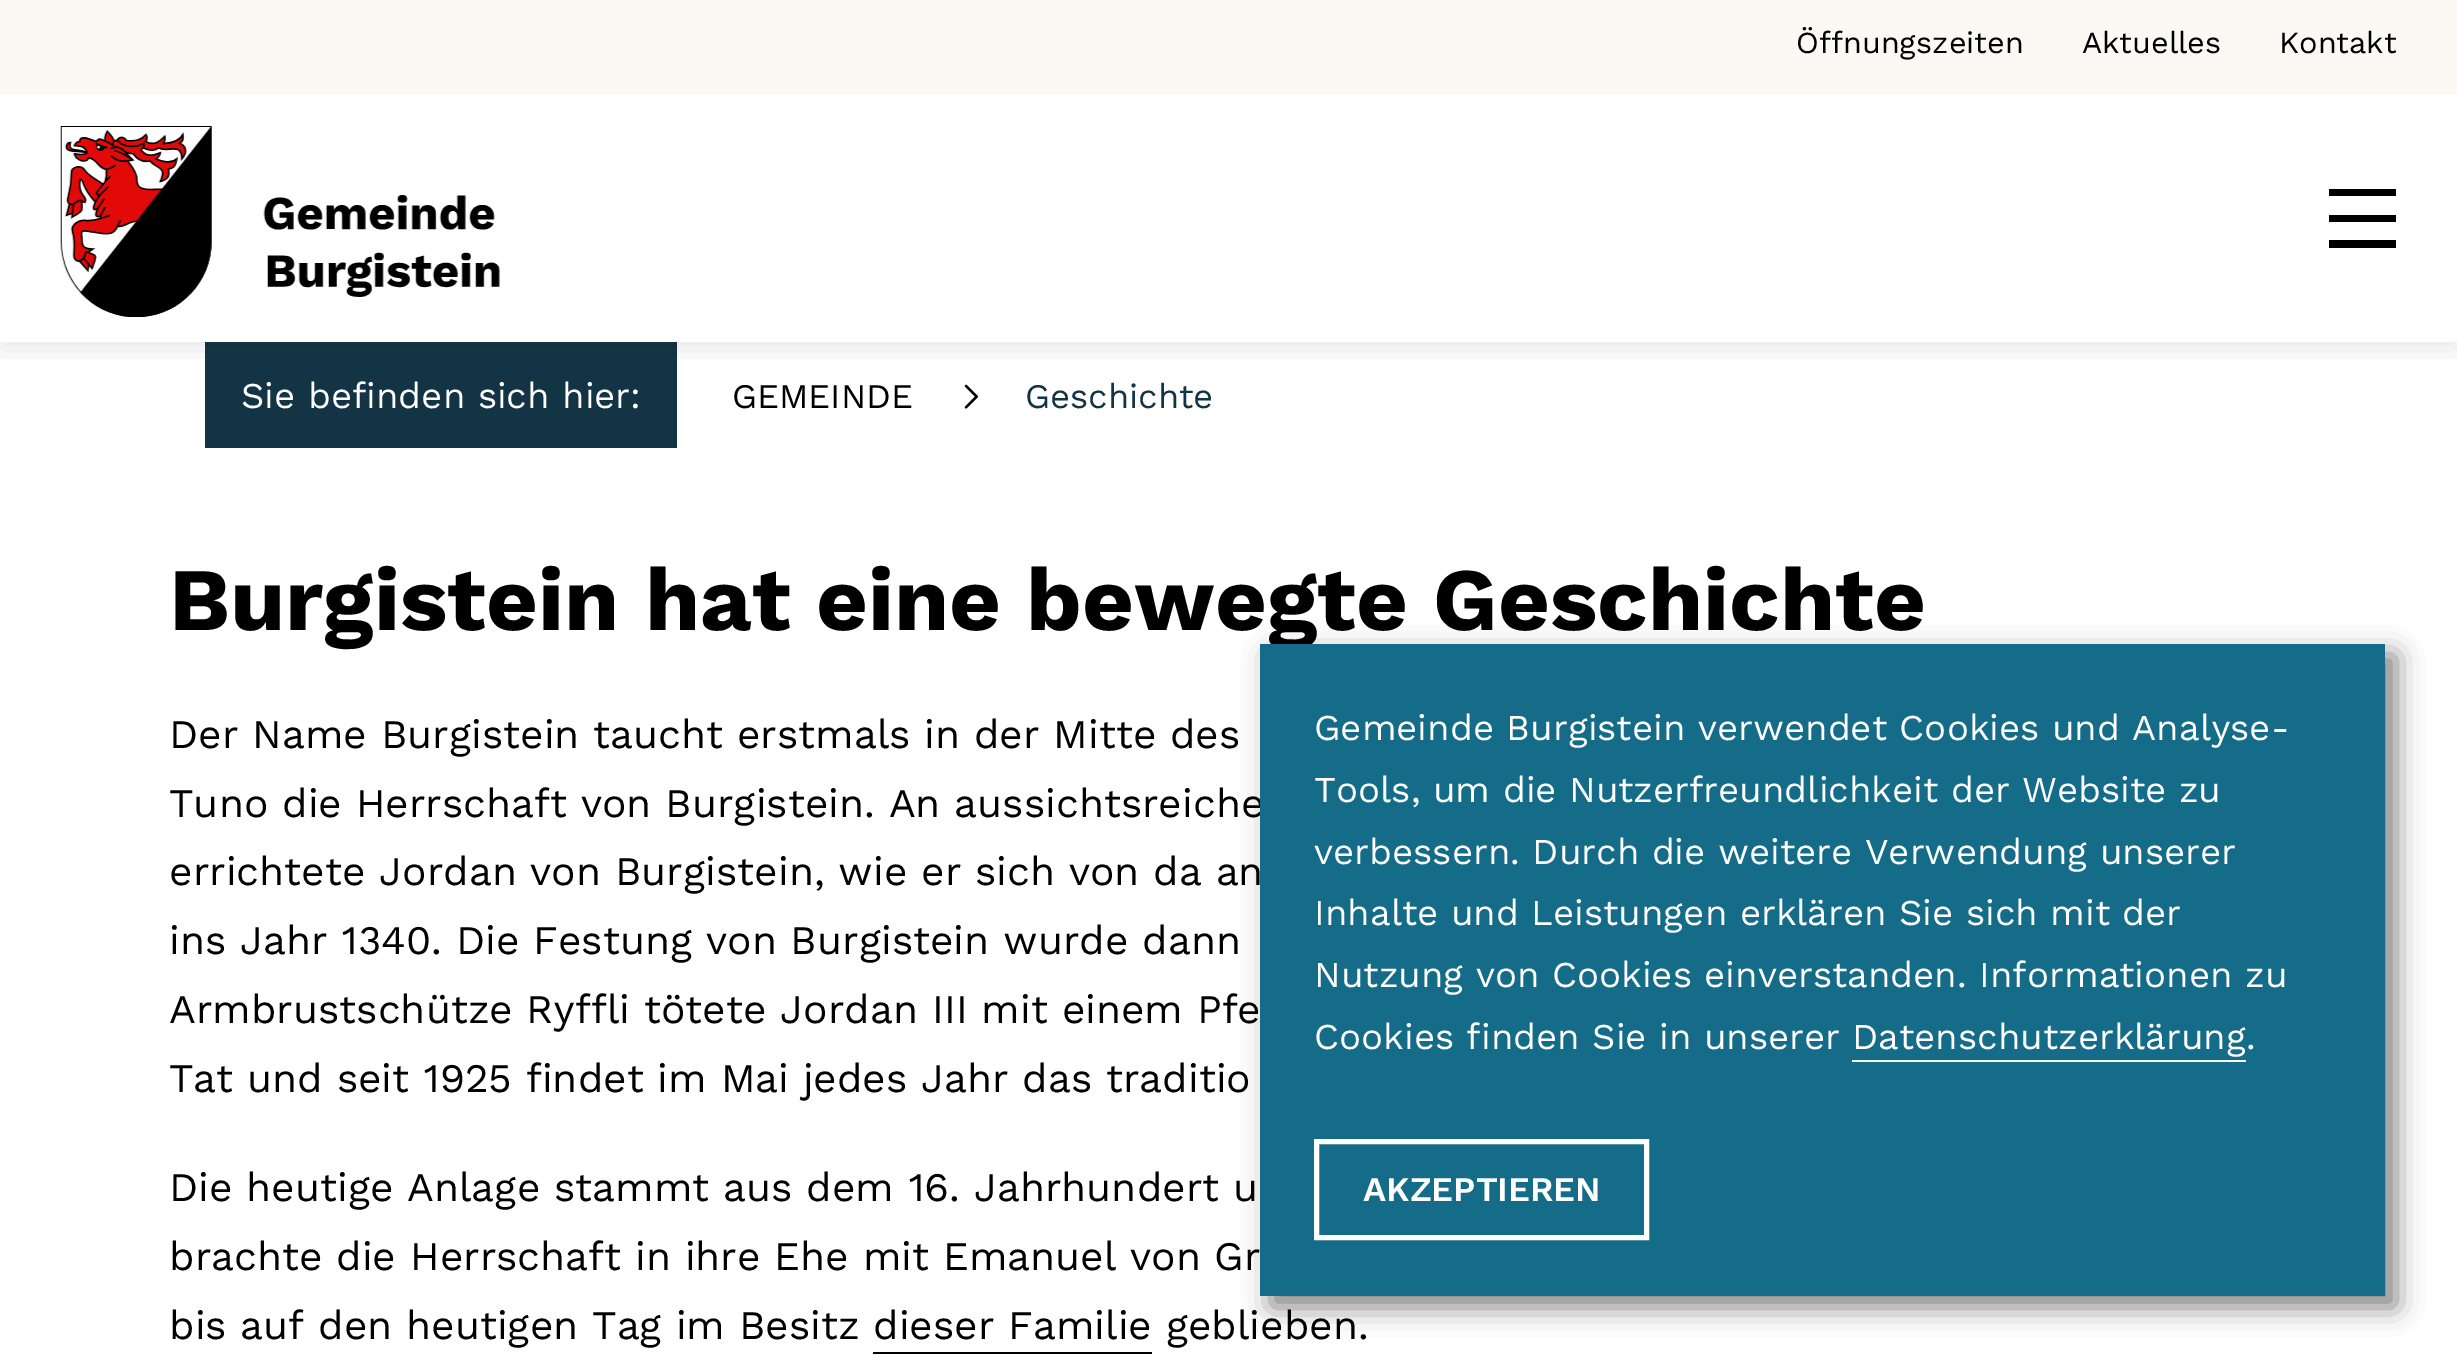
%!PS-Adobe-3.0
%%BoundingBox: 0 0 2457 1366
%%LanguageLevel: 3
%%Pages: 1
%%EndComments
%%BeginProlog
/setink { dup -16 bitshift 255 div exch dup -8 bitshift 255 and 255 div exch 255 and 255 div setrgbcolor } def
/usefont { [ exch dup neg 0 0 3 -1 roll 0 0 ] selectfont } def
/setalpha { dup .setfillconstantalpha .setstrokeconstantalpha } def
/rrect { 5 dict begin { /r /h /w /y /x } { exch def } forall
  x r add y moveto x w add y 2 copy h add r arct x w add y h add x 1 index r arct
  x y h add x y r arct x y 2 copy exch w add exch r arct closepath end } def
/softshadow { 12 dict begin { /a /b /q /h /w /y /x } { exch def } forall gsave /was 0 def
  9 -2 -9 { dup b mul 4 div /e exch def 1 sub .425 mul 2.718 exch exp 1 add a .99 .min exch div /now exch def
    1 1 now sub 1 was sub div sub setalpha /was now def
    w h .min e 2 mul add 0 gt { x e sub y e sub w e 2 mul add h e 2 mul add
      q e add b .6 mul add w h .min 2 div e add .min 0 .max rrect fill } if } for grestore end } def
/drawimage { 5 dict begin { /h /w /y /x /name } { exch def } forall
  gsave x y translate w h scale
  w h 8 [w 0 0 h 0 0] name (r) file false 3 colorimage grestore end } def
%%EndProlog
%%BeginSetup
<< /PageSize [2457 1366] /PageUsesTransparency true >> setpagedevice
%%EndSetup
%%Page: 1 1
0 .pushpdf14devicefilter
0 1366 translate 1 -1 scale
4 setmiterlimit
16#FFFFFF setink
0 0 2457 1366 rectfill
16#133445 setink
205 342 472 106 rectfill
(img2.raw) 964 384 14 25 drawimage
gsave
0 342 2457 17 rectclip
16#000000 setink
0 101 2457 248 0 13.5 0.09 softshadow
grestore
16#FCF8F4 setink
0 0 2457 95 rectfill
/WorkSans-Regular 30.5 usefont
16#000000 setink
[
    [(Öffnungszeiten) 1796 53]
    [(Aktuelles) 2082 53]
    [(Kontakt) 2279 53]
] { aload pop moveto show } forall
(img1.raw) 60 126 440 191 drawimage
2396 248 moveto 2329 248 lineto 2329 240 lineto 2396 240 lineto closepath 2396 222 moveto 2329 222 lineto 2329 215 lineto 2396 215 lineto closepath 2396 196 moveto 2329 196 lineto 2329 189 lineto 2396 189 lineto closepath fill
/WorkSans-Regular 36.45 usefont
16#FFFFFF setink
241 408 moveto (Sie befinden sich hier:) show
/WorkSans-Regular 34.5 usefont
16#000000 setink
732 408 moveto (GEMEINDE) show
16#133445 setink
1025 408 moveto (Geschichte) show
/WorkSans-Bold 89.1 usefont
16#000000 setink
169 630 moveto (Burgistein hat eine bewegte Geschichte) show
/WorkSans-Regular 40.5 usefont
[
    [(Der Name Burgistein taucht erstmals in der Mitte des) 169 748]
    [(Tuno die Herrschaft von Burgistein. An aussichtsreiche) 169 817]
    [(errichtete Jordan von Burgistein, wie er sich von da an) 169 885]
    [(ins Jahr 1340. Die Festung von Burgistein wurde dann) 169 954]
    [(Armbrustschütze Ryffli tötete Jordan III mit einem Pfe) 169 1023]
    [(Tat und seit 1925 findet im Mai jedes Jahr das traditio) 169 1092]
    [(Die heutige Anlage stammt aus dem 16. Jahrhundert u) 169 1201]
    [(brachte die Herrschaft in ihre Ehe mit Emanuel von Gr) 169 1270]
    [(bis auf den heutigen Tag im Besitz dieser Familie geblieben.) 169 1339]
] { aload pop moveto show } forall
873 1352 279 2 rectfill
1271 655 1125 652 0 13.5 0.5 softshadow
16#156C89 setink
1260 644 1125 652 rectfill
/WorkSans-Regular 36.45 usefont
16#FFFFFF setink
[
    [(Gemeinde Burgistein verwendet Cookies und Analyse-) 1314 740]
    [(Tools, um die Nutzerfreundlichkeit der Website zu) 1314 802]
    [(verbessern. Durch die weitere Verwendung unserer) 1314 864]
    [(Inhalte und Leistungen erklären Sie sich mit der) 1314 925]
    [(Nutzung von Cookies einverstanden. Informationen zu) 1314 987]
    [(Cookies finden Sie in unserer) 1314 1049]
    [(Datenschutzerklärung.) 1852 1049]
] { aload pop moveto show } forall
1852 1060 394 2 rectfill
5 setlinewidth
1316.5 1141.5 330 96 rectstroke
/WorkSans-SemiBold 34.5 usefont
1363 1201 moveto (AKZEPTIEREN) show
.poppdf14devicefilter showpage
%%EOF
